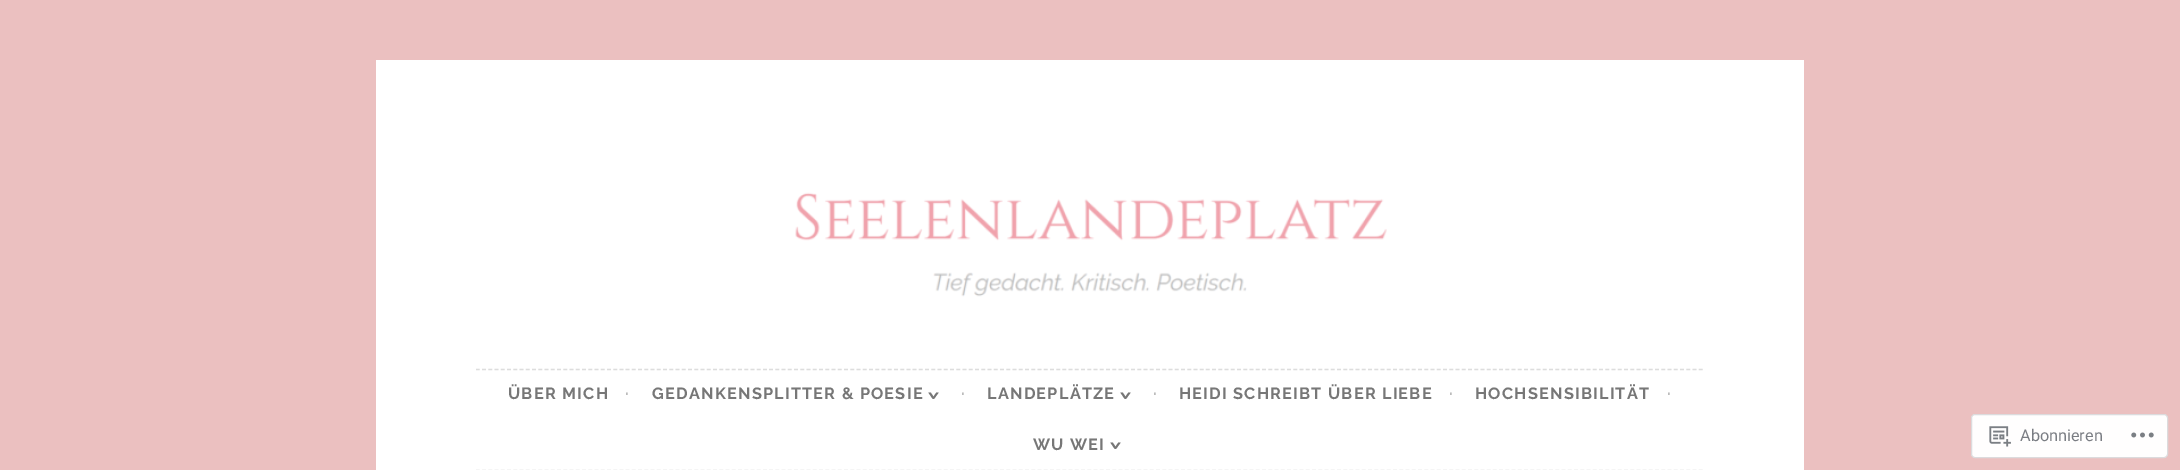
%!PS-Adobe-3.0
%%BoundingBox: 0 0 2180 470
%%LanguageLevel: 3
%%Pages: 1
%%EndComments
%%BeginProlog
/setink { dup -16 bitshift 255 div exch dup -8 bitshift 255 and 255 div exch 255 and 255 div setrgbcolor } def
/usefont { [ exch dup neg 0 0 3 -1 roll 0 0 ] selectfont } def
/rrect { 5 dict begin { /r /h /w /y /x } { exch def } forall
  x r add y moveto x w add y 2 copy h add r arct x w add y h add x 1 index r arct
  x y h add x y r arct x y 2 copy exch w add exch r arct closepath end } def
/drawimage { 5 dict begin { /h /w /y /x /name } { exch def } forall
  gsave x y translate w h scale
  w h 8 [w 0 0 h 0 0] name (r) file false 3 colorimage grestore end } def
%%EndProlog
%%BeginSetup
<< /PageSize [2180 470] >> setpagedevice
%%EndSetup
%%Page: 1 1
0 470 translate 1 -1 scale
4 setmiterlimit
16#EBC0C0 setink
0 0 2180 470 rectfill
16#FFFFFF setink
376 60 1428 410 rectfill
(img1.raw) 795 192 592 105 drawimage
16#DDDDDD setink
1.2 setlinewidth
[3.75 2.49] 0 setdash
476 369.5 moveto 1704 369.5 lineto stroke
476 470.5 moveto 1704 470.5 lineto stroke
/Raleway-Bold 16.25 usefont
16#777777 setink
508 399 moveto 1.25 0 (ÜBER MICH) ashow
16#BBBBBB setink
625 399 moveto 1.25 0 (·) ashow
16#777777 setink
652 399 moveto 1.25 0 (GEDANKENSPLITTER & POESIE) ashow
/Raleway-Bold 25 usefont
gsave 927 391 translate 90 rotate 0 0 moveto 1.25 0 (›) ashow grestore
/Raleway-Bold 16.25 usefont
16#BBBBBB setink
961 399 moveto 1.25 0 (·) ashow
16#777777 setink
987 399 moveto 1.25 0 (LANDEPLÄTZE) ashow
/Raleway-Bold 25 usefont
gsave 1119 391 translate 90 rotate 0 0 moveto 1.25 0 (›) ashow grestore
/Raleway-Bold 16.25 usefont
16#BBBBBB setink
1153 399 moveto 1.25 0 (·) ashow
16#777777 setink
1179 399 moveto 1.25 0 (HEIDI SCHREIBT ÜBER LIEBE) ashow
16#BBBBBB setink
1449 399 moveto 1.25 0 (·) ashow
16#777777 setink
1475 399 moveto 1.25 0 (HOCHSENSIBILITÄT) ashow
16#BBBBBB setink
1667 399 moveto 1.25 0 (·) ashow
16#777777 setink
1033 450 moveto 1.25 0 (WU WEI) ashow
/Raleway-Bold 25 usefont
gsave 1109 441 translate 90 rotate 0 0 moveto 1.25 0 (›) ashow grestore
16#FFFEFE setink
1971.5 414.5 196 43 3.5 rrect gsave fill grestore
16#DCDBDD setink
1 setlinewidth
[] 0 setdash
stroke
(img2.raw) 1989 426 22 21 drawimage
/Roboto-Regular 16.25 usefont
16#7A7D83 setink
2020 441 moveto (Abonnieren) show
(img3.raw) 2131 432 23 6 drawimage
showpage
%%EOF
